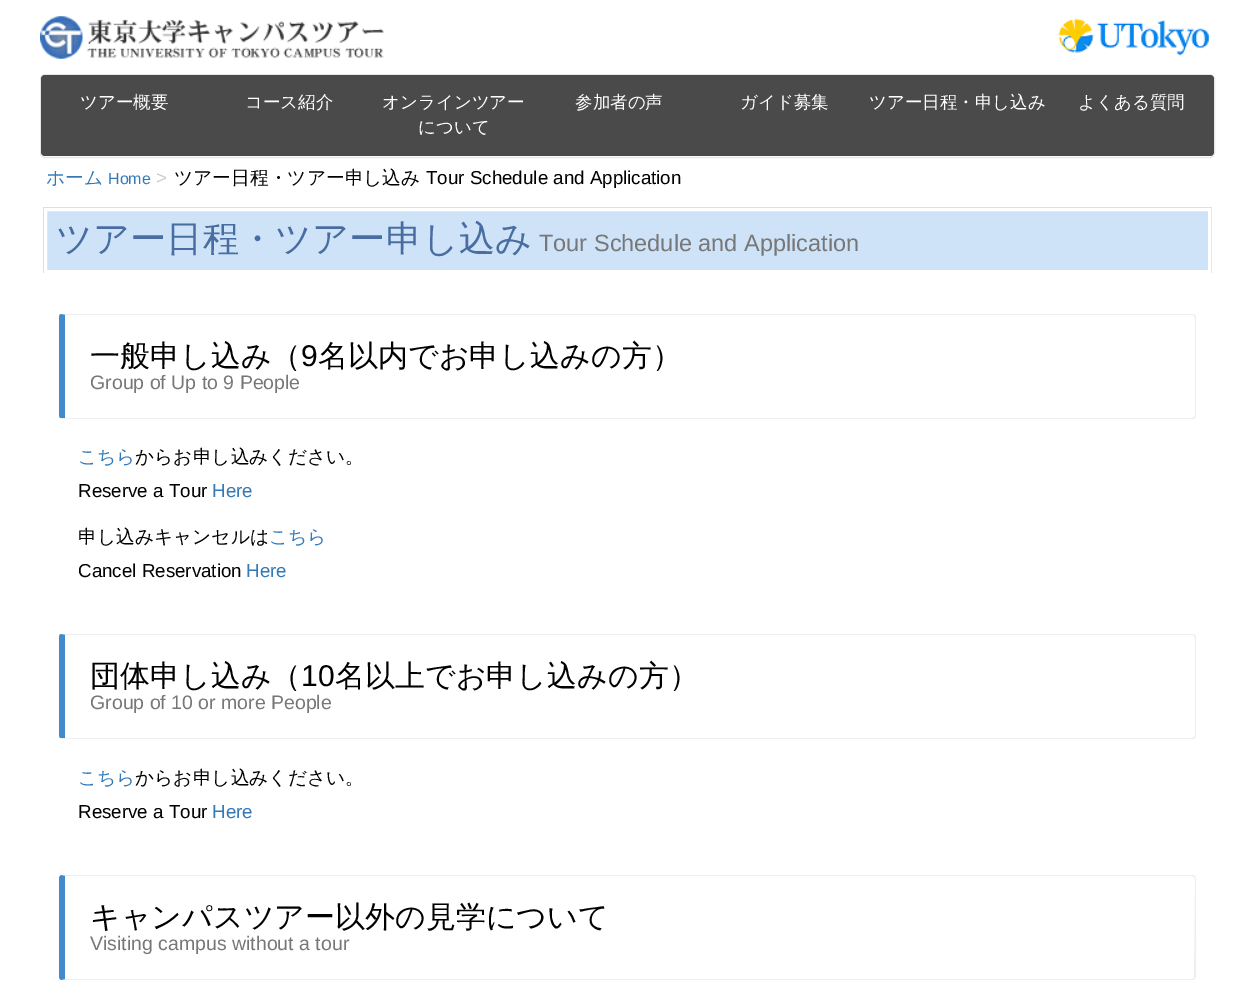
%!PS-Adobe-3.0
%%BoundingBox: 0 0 1255 1001
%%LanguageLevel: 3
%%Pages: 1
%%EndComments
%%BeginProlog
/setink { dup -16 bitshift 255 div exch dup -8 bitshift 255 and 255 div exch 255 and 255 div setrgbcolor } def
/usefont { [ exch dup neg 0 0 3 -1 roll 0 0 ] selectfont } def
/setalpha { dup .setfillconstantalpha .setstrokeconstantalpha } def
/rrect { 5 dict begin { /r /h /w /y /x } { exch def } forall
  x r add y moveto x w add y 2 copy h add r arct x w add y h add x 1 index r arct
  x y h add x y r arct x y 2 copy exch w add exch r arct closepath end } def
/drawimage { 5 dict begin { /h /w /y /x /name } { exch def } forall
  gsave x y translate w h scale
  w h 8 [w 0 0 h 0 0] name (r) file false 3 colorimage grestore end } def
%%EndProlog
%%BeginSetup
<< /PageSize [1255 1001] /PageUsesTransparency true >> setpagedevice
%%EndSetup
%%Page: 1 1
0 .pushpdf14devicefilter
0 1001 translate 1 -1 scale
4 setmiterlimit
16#FFFFFF setink
0 0 1255 1001 rectfill
(img1.raw) 40 16 344 43 drawimage
(img2.raw) 1058 18 151 38 drawimage
16#F8F8F8 setink
40.5 74.5 1174 83 4.5 rrect gsave fill grestore
16#E7E7E7 setink
stroke
0.7 setalpha
16#000000 setink
41 75 1173 81 4 rrect fill
/WenQuanYiZenHei-Medium 17.5 usefont
1 setalpha
16#FFFFFF setink
[
    [(ツアー概要) 80 108]
    [(コース紹介) 245 108]
    [(オンラインツアー) 382 108]
    [(について) 418 133]
    [(参加者の声) 575 108]
    [(ガイド募集) 740 108]
    [(ツアー日程・申し込み) 869 108]
    [(よくある質問) 1078 108]
] { aload pop moveto show } forall
/WenQuanYiZenHei-Medium 18.75 usefont
16#337AB7 setink
46 184 moveto (ホーム) show
/LiberationSans-Regular 16 usefont
108 184 moveto (Home) show
/LiberationSans-Regular 18.75 usefont
16#CCCCCC setink
156 184 moveto (>) show
/WenQuanYiZenHei-Medium 18.75 usefont
16#000000 setink
174 184 moveto (ツアー日程・ツアー申し込み) show
/LiberationSans-Regular 18.75 usefont
426 184 moveto (Tour Schedule and Application) show
16#CEE3F8 setink
43 207 1169 66 rectfill
16#FFFFFF setink
3 setlinewidth
45.5 209.5 1164 62 rectstroke
/WenQuanYiZenHei-Medium 36.25 usefont
16#496DA1 setink
56 251 moveto (ツアー日程・ツアー申し込み) show
/LiberationSans-Regular 23.5 usefont
16#777777 setink
539 251 moveto (Tour Schedule and Application) show
16#EEEEEE setink
62 314 moveto 61 314 lineto 65 315 lineto 1192 315 lineto 1194 316 lineto 1195 315 lineto 1192 314 lineto closepath fill
1195 315 moveto 1196 316 1196 316 1196 318 curveto 1196 415 lineto 1195 418 lineto 1194 417 lineto 1195 415 lineto 1195 318 lineto 1194 316 lineto closepath fill
61 419 moveto 60 418 lineto 65 418 lineto 1192 418 lineto 1194 417 lineto 1195 418 lineto 1194 419 lineto closepath fill
16#428BCB setink
65 315 moveto 61 314 59 313 59 318 curveto 59 416 lineto 60 418 lineto 65 418 lineto closepath fill
/WenQuanYiZenHei-Medium 30 usefont
16#000000 setink
90 366 moveto (一般申し込み（) show
/LiberationSans-Regular 30 usefont
301 366 moveto (9) show
/WenQuanYiZenHei-Medium 30 usefont
318 366 moveto (名以内でお申し込みの⽅）) show
/LiberationSans-Regular 19.5 usefont
16#777777 setink
90 389 moveto (Group of Up to 9 People) show
/WenQuanYiZenHei-Medium 18.75 usefont
16#337AB7 setink
78 463 moveto (こちら) show
16#000000 setink
135 463 moveto (からお申し込みください。) show
/LiberationSans-Regular 18.75 usefont
78 497 moveto (Reserve a Tour) show
16#337AB7 setink
212 497 moveto (Here) show
/WenQuanYiZenHei-Medium 18.75 usefont
16#000000 setink
78 543 moveto (申し込みキャンセルは) show
16#337AB7 setink
269 543 moveto (こちら) show
/LiberationSans-Regular 18.75 usefont
16#000000 setink
78 577 moveto (Cancel Reservation) show
16#337AB7 setink
246 577 moveto (Here) show
16#EEEEEE setink
62 634 moveto 61 634 lineto 65 635 lineto 1192 635 lineto 1194 636 lineto 1195 635 lineto 1192 634 lineto closepath fill
1195 635 moveto 1196 636 1196 636 1196 638 curveto 1196 735 lineto 1195 738 lineto 1194 737 lineto 1195 735 lineto 1195 638 lineto 1194 636 lineto closepath fill
61 739 moveto 60 738 lineto 65 738 lineto 1192 738 lineto 1194 737 lineto 1195 738 lineto 1194 739 lineto closepath fill
16#428BCB setink
65 635 moveto 61 634 59 633 59 638 curveto 59 736 lineto 60 738 lineto 65 738 lineto closepath fill
/WenQuanYiZenHei-Medium 30 usefont
16#000000 setink
90 686 moveto (団体申し込み（) show
/LiberationSans-Regular 30 usefont
301 686 moveto (10) show
/WenQuanYiZenHei-Medium 30 usefont
335 686 moveto (名以上でお申し込みの方）) show
/LiberationSans-Regular 19.5 usefont
16#777777 setink
90 709 moveto (Group of 10 or more People) show
/WenQuanYiZenHei-Medium 18.75 usefont
16#337AB7 setink
78 784 moveto (こちら) show
16#000000 setink
135 784 moveto (からお申し込みください。) show
/LiberationSans-Regular 18.75 usefont
78 818 moveto (Reserve a Tour) show
16#337AB7 setink
212 818 moveto (Here) show
16#EEEEEE setink
62 875 moveto 61 875 lineto 65 876 lineto 1192 876 lineto 1194 877 lineto 1195 876 lineto 1194 875 1193 875 1192 875 curveto closepath fill
1195 876 moveto 1196 879 lineto 1196 976 lineto 1195 979 lineto 1194 978 lineto 1195 895 lineto 1195 879 lineto 1194 877 lineto closepath fill
62 980 moveto 1192 980 lineto 1193 980 1194 980 1195 979 curveto 1194 978 lineto 1192 979 lineto 65 979 lineto 61 980 lineto closepath fill
16#428BCB setink
61 875 moveto 59 877 lineto 59 976 lineto 59 977 59 979 61 980 curveto 65 979 lineto 65 876 lineto closepath fill
/WenQuanYiZenHei-Medium 30 usefont
16#000000 setink
90 927 moveto (キャンパスツアー以外の見学について) show
/LiberationSans-Regular 19.5 usefont
16#777777 setink
90 950 moveto (Visiting campus without a tour) show
.poppdf14devicefilter showpage
%%EOF
